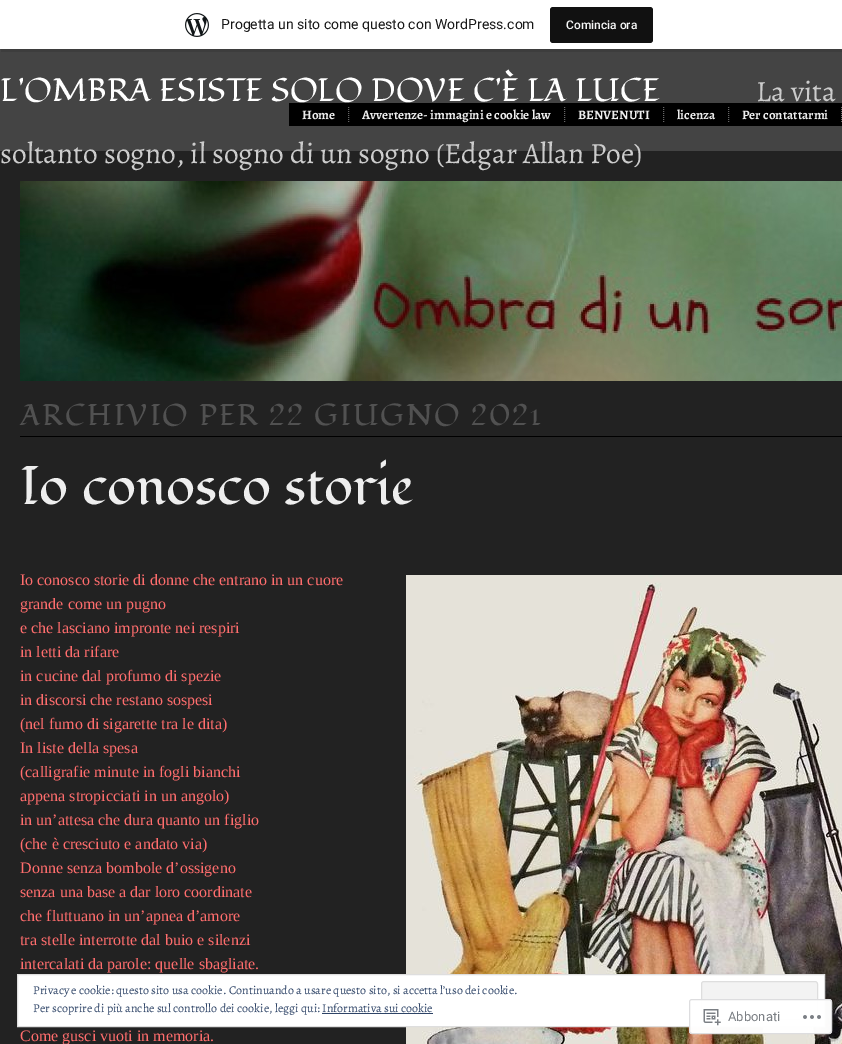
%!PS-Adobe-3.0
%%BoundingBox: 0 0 842 1044
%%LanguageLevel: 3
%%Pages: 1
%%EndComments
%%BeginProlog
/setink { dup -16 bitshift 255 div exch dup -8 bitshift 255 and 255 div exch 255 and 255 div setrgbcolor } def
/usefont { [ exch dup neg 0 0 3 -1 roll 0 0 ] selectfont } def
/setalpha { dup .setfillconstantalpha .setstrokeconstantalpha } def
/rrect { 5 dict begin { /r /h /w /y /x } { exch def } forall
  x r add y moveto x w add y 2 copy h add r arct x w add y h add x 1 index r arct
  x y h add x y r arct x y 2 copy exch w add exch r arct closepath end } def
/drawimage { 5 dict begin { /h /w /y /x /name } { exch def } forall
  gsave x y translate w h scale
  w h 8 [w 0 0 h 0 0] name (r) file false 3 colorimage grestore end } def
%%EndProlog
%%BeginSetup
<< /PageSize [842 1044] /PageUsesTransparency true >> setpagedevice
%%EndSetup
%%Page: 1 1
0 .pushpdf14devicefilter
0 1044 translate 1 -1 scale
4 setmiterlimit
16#444444 setink
0 0 842 1044 rectfill
16#222222 setink
0 151 842 893 rectfill
16#3D3D3D setink
1 49 moveto 1 52 lineto 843 52 lineto 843 3 lineto 842 3 lineto 842 49 lineto closepath fill
16#FFFFFF setink
0 0 842 49 rectfill
(img1.raw) 185 13 24 24 drawimage
/Roboto-Regular 14 usefont
16#171717 setink
221 29 moveto (Progetta un sito come questo con WordPress.com) show
16#111111 setink
550 7 103 36 3 rrect fill
/Roboto-Medium 12 usefont
16#F6F7F7 setink
566 29 moveto (Comincia ora) show
(img2.raw) 20 181 822 200 drawimage
16#000000 setink
20 436 822 1 rectfill
/Fondamento-Regular 29.75 usefont
16#515151 setink
20 425 moveto 2 0 (ARCHIVIO PER 22 GIUGNO 2021) ashow
/Fondamento-Regular 54 usefont
16#EEEEEE setink
20 504 moveto (Io conosco storie) show
/LiberationSerif-Regular 16 usefont
16#FF6D6D setink
20 585 moveto (Io conosco storie di donne che entrano in un cuore) show
(img3.raw) 406 575 436 469 drawimage
[
    [(grande come un pugno) 20 609]
    [(e che lasciano impronte nei respiri) 20 633]
    [(in letti da rifare) 20 657]
    [(in cucine dal profumo di spezie) 20 681]
    [(in discorsi che restano sospesi) 20 705]
    [(\(nel fumo di sigarette tra le dita\)) 20 729]
    [(In liste della spesa) 20 753]
    [(\(calligrafie minute in fogli bianchi) 20 777]
    [(appena stropicciati in un angolo\)) 20 801]
    [(in un’attesa che dura quanto un figlio) 20 825]
    [(\(che è cresciuto e andato via\)) 20 849]
    [(Donne senza bombole d’ossigeno) 20 873]
    [(senza una base a dar loro coordinate) 20 897]
    [(che fluttuano in un’apnea d’amore) 20 921]
    [(tra stelle interrotte dal buio e silenzi) 20 945]
    [(intercalati da parole: quelle sbagliate.) 20 969]
    [(Come gusci vuoti in memoria.) 20 1041]
] { aload pop moveto show } forall
16#FFFFFF setink
17.5 974.5 moveto 824.5 974.5 lineto 824.5 1026.5 lineto 17.5 1026.5 lineto closepath gsave fill grestore
16#DEDEDE setink
stroke
16#F3F3F3 setink
701.5 981.5 116 38 2.5 rrect gsave fill grestore
16#DEDEDE setink
stroke
0.98 setalpha
16#FFFFFF setink
689 999 143 35 3 rrect fill
16#DCDCDE setink
689.5 999.5 142 34 2.5 rrect stroke
1 setalpha
(img4.raw) 703 1009 18 17 drawimage
/Roboto-Regular 13 usefont
16#7B7F84 setink
728 1021 moveto (Abbonati) show
(img5.raw) 803 1015 18 4 drawimage
/Fondamento-Regular 32.45 usefont
16#FFFFFF setink
0 101 moveto (L'OMBRA ESISTE SOLO DOVE C'È LA LUCE) show
/Alegreya-Regular 29.5 usefont
16#CCCCCC setink
756 101 moveto (La vita) show
0 163 moveto (soltanto sogno, il sogno di un sogno \(Edgar Allan Poe\)) show
16#000000 setink
289 103 553 23 rectfill
16#666666 setink
[1 1] 0 setdash
348.5 107 moveto 348.5 122 lineto stroke
/Alegreya-Bold 13 usefont
16#EEEEEE setink
302 119 moveto (Home) show
16#666666 setink
564.5 107 moveto 564.5 122 lineto stroke
16#EEEEEE setink
362 119 moveto (Avvertenze- immagini e cookie law) show
16#666666 setink
663.5 107 moveto 663.5 122 lineto stroke
16#EEEEEE setink
578 119 moveto (BENVENUTI) show
16#666666 setink
728.5 107 moveto 728.5 122 lineto stroke
16#EEEEEE setink
677 119 moveto (licenza) show
16#666666 setink
841.5 107 moveto 841.5 122 lineto stroke
16#EEEEEE setink
742 119 moveto (Per contattarmi) show
/Alegreya-Regular 12 usefont
16#2E4467 setink
33 994 moveto (Privacy e cookie: questo sito usa cookie. Continuando a usare questo sito, si accetta l’uso dei cookie.) show
33 1012 moveto (Per scoprire di più anche sul controllo dei cookie, leggi qui: Informativa sui cookie) show
322 1013 111 1 rectfill
.poppdf14devicefilter showpage
%%EOF
